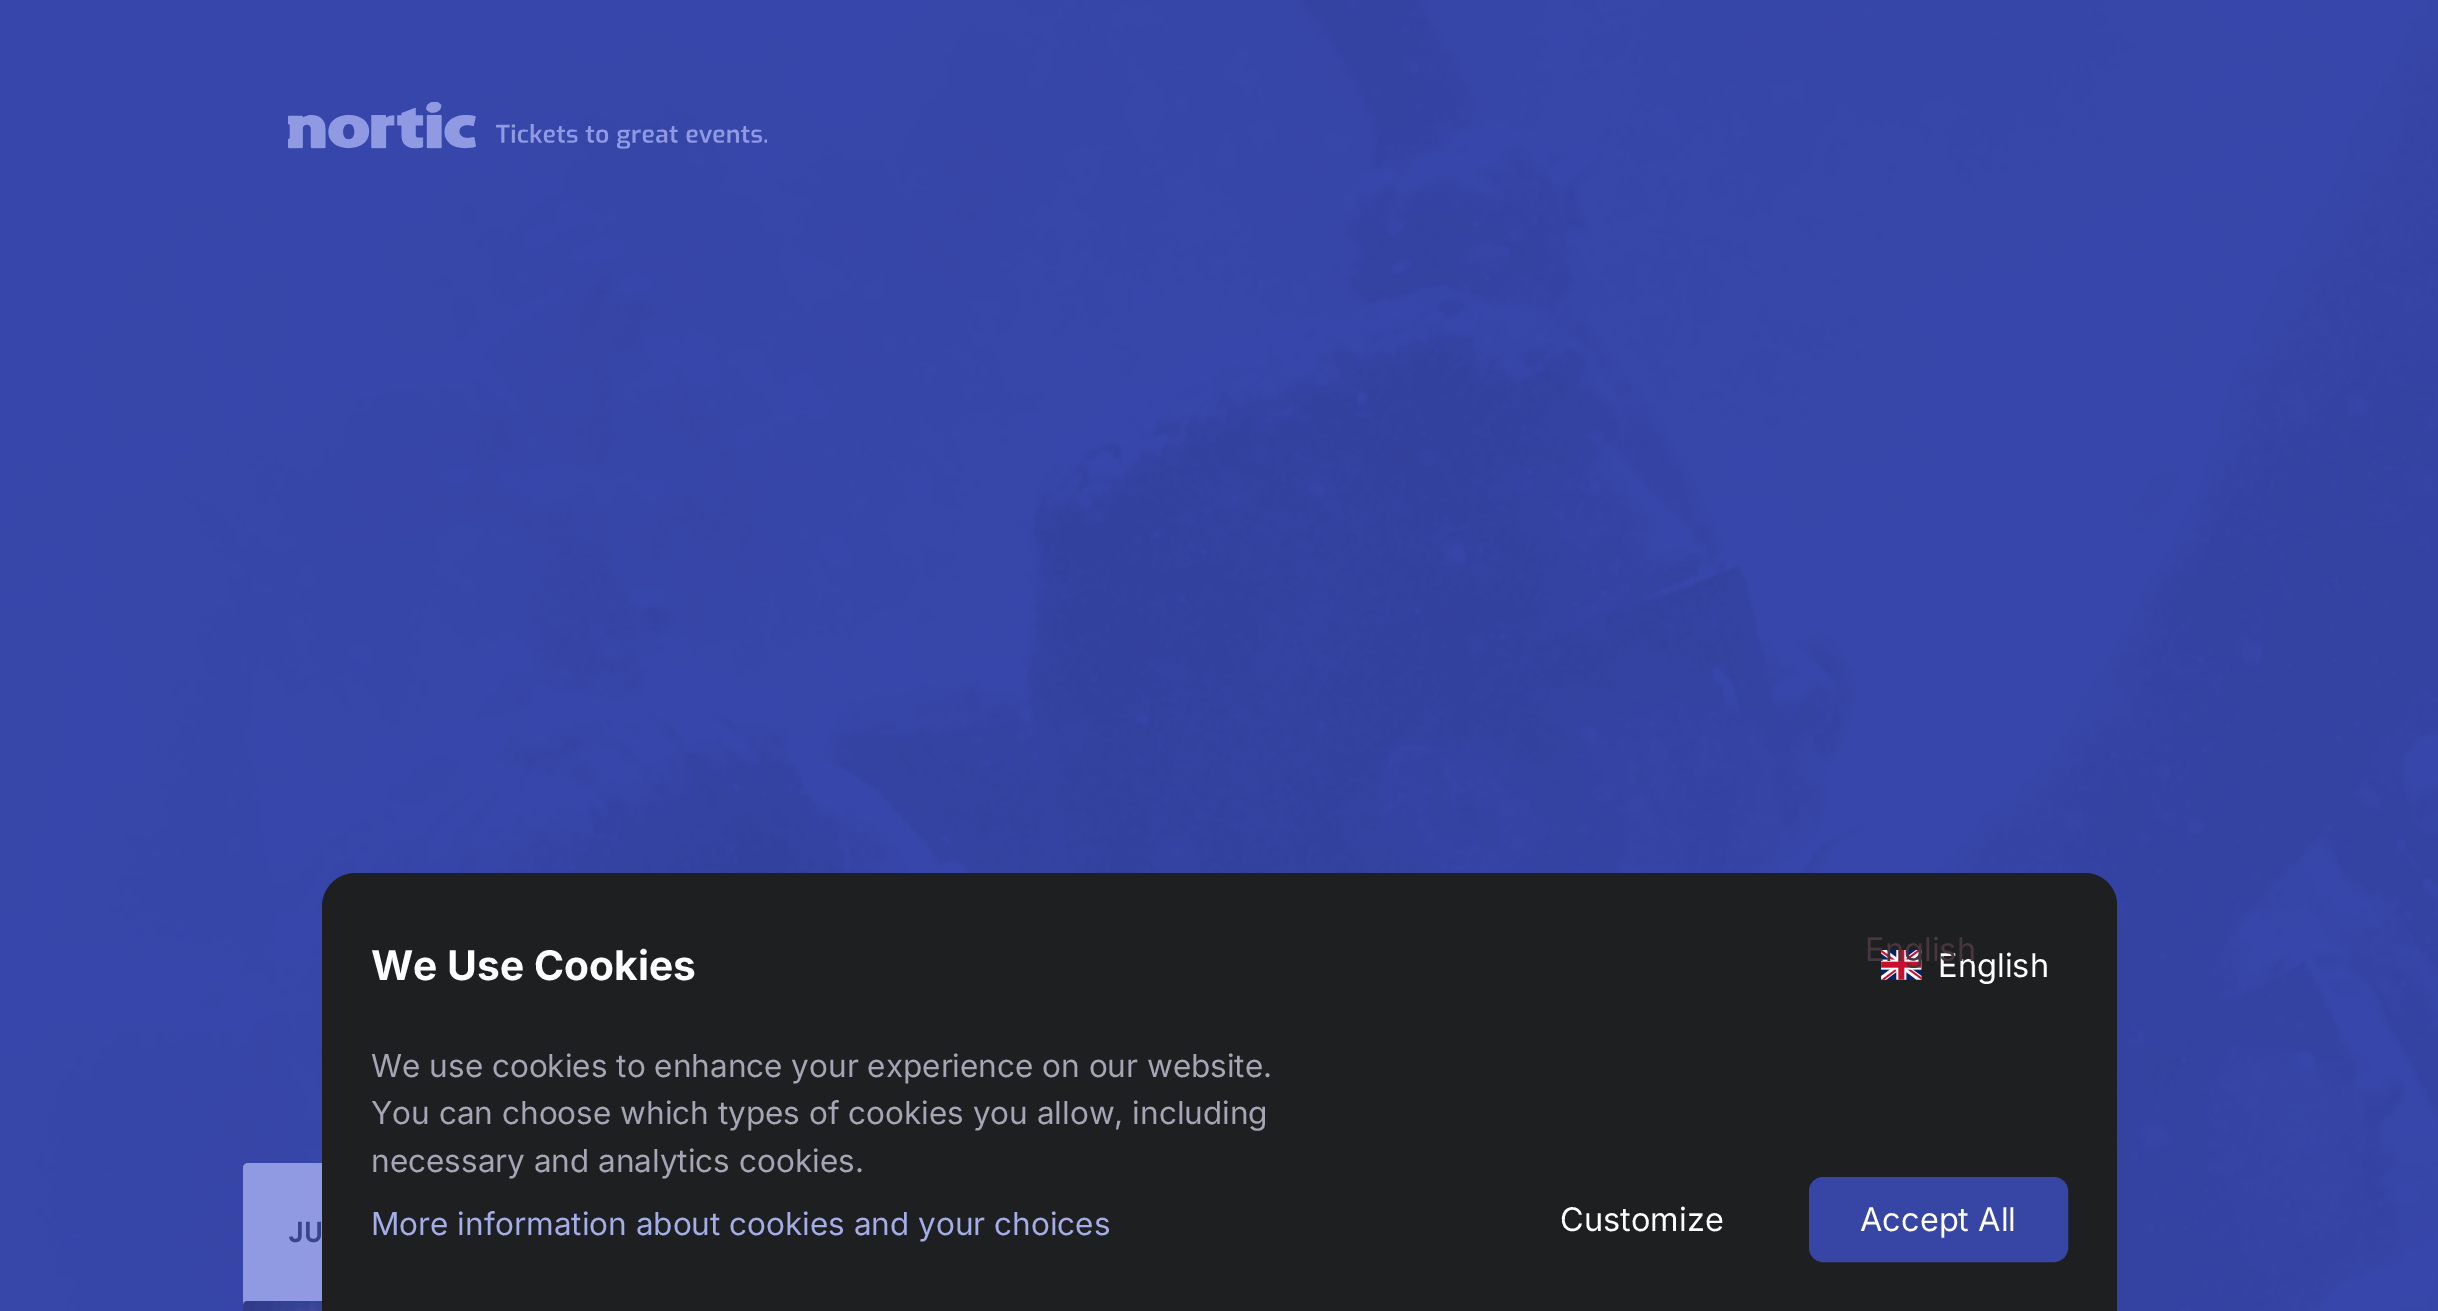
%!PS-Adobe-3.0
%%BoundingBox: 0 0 2438 1311
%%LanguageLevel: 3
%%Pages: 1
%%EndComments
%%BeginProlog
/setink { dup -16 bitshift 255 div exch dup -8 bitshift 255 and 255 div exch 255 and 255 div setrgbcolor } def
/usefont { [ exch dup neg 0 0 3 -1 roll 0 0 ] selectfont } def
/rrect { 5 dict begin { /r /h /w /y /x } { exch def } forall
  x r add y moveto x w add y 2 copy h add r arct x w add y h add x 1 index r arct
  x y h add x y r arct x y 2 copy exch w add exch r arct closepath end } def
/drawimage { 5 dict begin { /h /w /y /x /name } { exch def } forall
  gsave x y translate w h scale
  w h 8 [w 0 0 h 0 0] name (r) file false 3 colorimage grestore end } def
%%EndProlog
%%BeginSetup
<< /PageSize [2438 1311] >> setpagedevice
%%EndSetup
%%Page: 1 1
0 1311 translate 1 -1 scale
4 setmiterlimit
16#FFFFFF setink
0 0 2438 1311 rectfill
(img1.raw) 0 0 2438 1311 drawimage
(img2.raw) 288 102 479 47 drawimage
16#8F9AE3 setink
243 1163 610 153 5 rrect fill
/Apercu-Bold 29 usefont
16#38448C setink
289 1242 moveto (JU) show
(img3.raw) 243 1301 79 10 drawimage
16#1D1F20 setink
356 873 moveto 2085 873 lineto 2102.5 873 2117 887.5 2117 905 curveto 2117 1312 lineto 322 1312 lineto 322 907 lineto 322 888 337 873 356 873 curveto closepath fill
/Inter-Bold 40.75 usefont
16#FFFFFF setink
371 980 moveto (We Use Cookies) show
(img4.raw) 1881 950 41 30 drawimage
/Inter-Regular 32.5 usefont
1938 977 moveto (English) show
16#46363D setink
1865 961 moveto (English) show
/Inter-Regular 31.5 usefont
16#A6A4B5 setink
[
    [(We use cookies to enhance your experience on our website.) 371 1077]
    [(You can choose which types of cookies you allow, including) 371 1124]
    [(necessary and analytics cookies.) 371 1172]
] { aload pop moveto show } forall
16#A4ADE8 setink
371 1235 moveto (More information about cookies and your choices) show
/Inter-Regular 32.5 usefont
16#FFFFFF setink
1560 1231 moveto (Customize) show
16#3746A4 setink
1810 1178 257 83 13 rrect gsave fill grestore
2 setlinewidth
stroke
16#FFFFFF setink
1860 1231 moveto (Accept All) show
showpage
%%EOF
